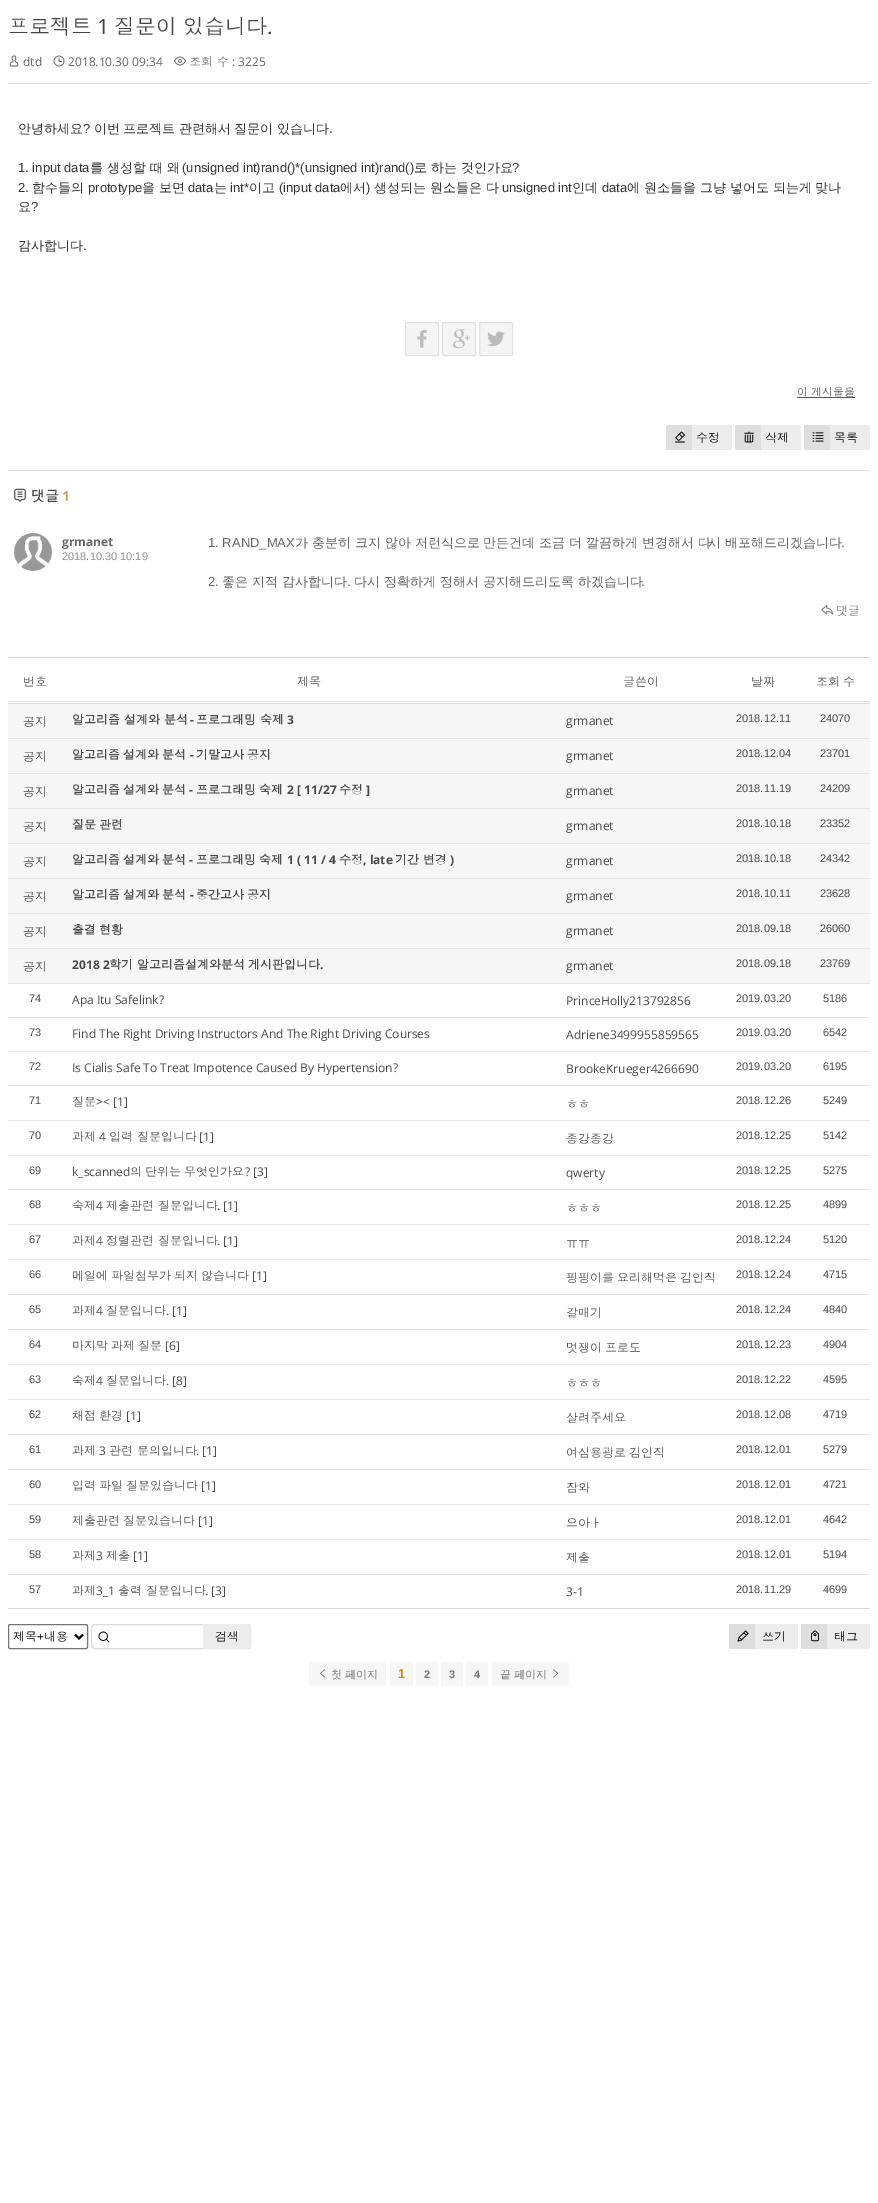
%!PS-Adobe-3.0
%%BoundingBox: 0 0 878 2203
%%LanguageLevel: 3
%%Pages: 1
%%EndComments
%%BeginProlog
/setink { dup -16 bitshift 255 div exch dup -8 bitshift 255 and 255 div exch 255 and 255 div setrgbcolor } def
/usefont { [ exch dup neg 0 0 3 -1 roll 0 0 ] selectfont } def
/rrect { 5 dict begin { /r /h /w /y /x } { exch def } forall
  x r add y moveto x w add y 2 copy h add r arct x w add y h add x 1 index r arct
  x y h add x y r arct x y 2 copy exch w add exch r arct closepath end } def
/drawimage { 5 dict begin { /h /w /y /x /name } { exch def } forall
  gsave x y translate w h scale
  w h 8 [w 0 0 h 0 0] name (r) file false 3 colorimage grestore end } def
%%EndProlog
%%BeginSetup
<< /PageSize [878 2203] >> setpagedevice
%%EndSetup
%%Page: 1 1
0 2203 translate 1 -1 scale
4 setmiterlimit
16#FFFFFF setink
0 0 878 2203 rectfill
/Dotum-Regular 21 usefont
16#444444 setink
8 34 moveto (프로젝트) show
/OpenSans-Regular 21 usefont
97 34 moveto (1) show
/Dotum-Regular 21 usefont
114 34 moveto -1 0 32 (질문이 있습니다) widthshow
/OpenSans-Regular 21 usefont
267 34 moveto (.) show
16#DDDDDD setink
8 83 862 1 rectfill
(img1.raw) 9 55 10 12 drawimage
/OpenSans-Regular 12 usefont
16#666666 setink
23 66 moveto (dtd) show
(img2.raw) 53 55 12 12 drawimage
68 66 moveto (2018.10.30 09:34) show
(img3.raw) 174 56 12 10 drawimage
/Dotum-Regular 12 usefont
189 66 moveto (조회) show
217 66 moveto (수) show
/OpenSans-Regular 12 usefont
232 66 moveto (: 3225) show
/WenQuanYiZenHei-Medium 13 usefont
16#333333 setink
18 133 moveto (안녕하세요) show
/LiberationSans-Regular 13 usefont
83 133 moveto (?) show
/WenQuanYiZenHei-Medium 13 usefont
94 133 moveto -0.5 0 32 (이번 프로젝트 관련해서 질문이 있습니다) widthshow
/LiberationSans-Regular 13 usefont
329 133 moveto (.) show
18 172 moveto (1. input data) show
/WenQuanYiZenHei-Medium 13 usefont
90 172 moveto (를 생성할 때 왜) show
/LiberationSans-Regular 13 usefont
182 172 moveto (\(unsigned int\)rand\(\)*\(unsigned int\)rand\(\)) show
/WenQuanYiZenHei-Medium 13 usefont
414 172 moveto (로 하는 것인가요) show
/LiberationSans-Regular 13 usefont
512 172 moveto (?) show
18 192 moveto (2.) show
/WenQuanYiZenHei-Medium 13 usefont
32 192 moveto (함수들의) show
/LiberationSans-Regular 13 usefont
88 192 moveto (prototype) show
/WenQuanYiZenHei-Medium 13 usefont
142 192 moveto (을 보면) show
/LiberationSans-Regular 13 usefont
188 192 moveto (data) show
/WenQuanYiZenHei-Medium 13 usefont
214 192 moveto (는) show
/LiberationSans-Regular 13 usefont
230 192 moveto (int*) show
/WenQuanYiZenHei-Medium 13 usefont
249 192 moveto (이고) show
/LiberationSans-Regular 13 usefont
279 192 moveto (\(input data) show
/WenQuanYiZenHei-Medium 13 usefont
340 192 moveto (에서) show
/LiberationSans-Regular 13 usefont
366 192 moveto (\)) show
/WenQuanYiZenHei-Medium 13 usefont
374 192 moveto (생성되는 원소들은 다) show
/LiberationSans-Regular 13 usefont
502 192 moveto (unsigned int) show
/WenQuanYiZenHei-Medium 13 usefont
572 192 moveto (인데) show
/LiberationSans-Regular 13 usefont
602 192 moveto (data) show
/WenQuanYiZenHei-Medium 13 usefont
627 192 moveto (에 원소들을 그냥 넣어도 되는게 맞나) show
18 211 moveto (요) show
/LiberationSans-Regular 13 usefont
31 211 moveto (?) show
/WenQuanYiZenHei-Medium 13 usefont
18 250 moveto (감사합니다) show
/LiberationSans-Regular 13 usefont
83 250 moveto (.) show
16#F4F4F4 setink
405.5 322.5 33 33 1.5 rrect gsave fill grestore
16#E0E0E0 setink
stroke
(img4.raw) 417 330 10 18 drawimage
16#F4F4F4 setink
442.5 322.5 33 33 1.5 rrect gsave fill grestore
16#E0E0E0 setink
stroke
(img5.raw) 452 329 18 20 drawimage
16#F4F4F4 setink
479.5 322.5 33 33 1.5 rrect gsave fill grestore
16#E0E0E0 setink
stroke
(img6.raw) 487 331 18 16 drawimage
/Dotum-Regular 11 usefont
16#555555 setink
797 396 moveto -1 0 32 (이 게시물을) widthshow
797 397 58 1 rectfill
16#ECECEC setink
666 425 66 25 2 rrect fill
16#DEDEDE setink
668 425 moveto 692 425 lineto 692 450 lineto 668 450 lineto 667 450 666 449 666 448 curveto 666 427 lineto 666 426 667 425 668 425 curveto closepath fill
(img7.raw) 675 431 10 12 drawimage
/Dotum-Regular 12 usefont
16#000000 setink
696 442 moveto (수정) show
16#ECECEC setink
735 425 66 25 2 rrect fill
16#DEDEDE setink
737 425 moveto 761 425 lineto 761 450 lineto 737 450 lineto 736 450 735 449 735 448 curveto 735 427 lineto 735 426 736 425 737 425 curveto closepath fill
(img8.raw) 744 431 10 12 drawimage
16#000000 setink
765 442 moveto (삭제) show
16#ECECEC setink
804 425 66 25 2 rrect fill
16#DEDEDE setink
806 425 moveto 830 425 lineto 830 450 lineto 806 450 lineto 805 450 804 449 804 448 curveto 804 427 lineto 804 426 805 425 806 425 curveto closepath fill
(img9.raw) 812 432 12 10 drawimage
16#000000 setink
834 442 moveto (목록) show
16#DDDDDD setink
8 470 862 1 rectfill
(img10.raw) 14 488 12 14 drawimage
/Dotum-Bold 14 usefont
16#4A4A4A setink
31 501 moveto (댓글) show
/OpenSans-Bold 14 usefont
16#CDA25A setink
62 501 moveto (1) show
(img11.raw) 14 533 38 38 drawimage
/OpenSans-Bold 12 usefont
16#666666 setink
62 546 moveto (grmanet) show
/LiberationSans-Regular 11 usefont
16#8E8E8E setink
62 560 moveto (2018.10.30 10:19) show
/LiberationSans-Regular 13 usefont
16#666666 setink
208 547 moveto (1. RAND_MAX) show
/WenQuanYiZenHei-Medium 13 usefont
295 547 moveto (가 충분히 크지 않아 저런식으로 만든건데 조금 더 깔끔하게 변경해서 다) show
708 547 moveto (시 배포해드리겠습니다) show
/LiberationSans-Regular 13 usefont
841 547 moveto (.) show
208 586 moveto (2.) show
/WenQuanYiZenHei-Medium 13 usefont
222 586 moveto (좋은 지적 감사합니다) show
/LiberationSans-Regular 13 usefont
347 586 moveto (.) show
/WenQuanYiZenHei-Medium 13 usefont
354 586 moveto (다시 정확하게 정해서 공지해드리도록 하겠습니다) show
/LiberationSans-Regular 13 usefont
641 586 moveto (.) show
(img12.raw) 821 605 12 10 drawimage
/Dotum-Regular 12 usefont
16#767676 setink
836 615 moveto (댓글) show
[
    [8 657 862 1 16#D8D8D8]
    [8 1608 862 1 16#D8D8D8]
    [8 701 862 1 16#DBDBDB]
    [8 703 862 1 16#DBDBDB]
] { aload pop setink rectfill } forall
16#4A4A4A setink
[
    [(번호) 23 686]
    [(제목) 297 686]
    [(글쓴이) 623 686]
    [(날짜) 751 686]
] { aload pop moveto show } forall
816 686 moveto -1 0 32 (조회 수) widthshow
16#F6F6F6 setink
8 704 862 34 rectfill
16#E6E6E6 setink
8 738 862 1 rectfill
16#4A4A4A setink
23 726 moveto (공지) show
/Dotum-Bold 12 usefont
72 724 moveto (알고리즘 설계와 분석) show
/OpenSans-Bold 12 usefont
190 724 moveto (-) show
/Dotum-Bold 12 usefont
196 724 moveto (프로그래밍 숙제) show
/OpenSans-Bold 12 usefont
287 724 moveto (3) show
/OpenSans-Regular 12 usefont
566 725 moveto (grmanet) show
/LiberationSans-Regular 11 usefont
736 722 moveto (2018.12.11) show
820 722 moveto (24070) show
16#F6F6F6 setink
8 739 862 34 rectfill
16#E6E6E6 setink
8 773 862 1 rectfill
/Dotum-Regular 12 usefont
16#4A4A4A setink
23 761 moveto (공지) show
/Dotum-Bold 12 usefont
72 759 moveto -1 0 32 (알고리즘 설계와 분석) widthshow
/OpenSans-Bold 12 usefont
190 759 moveto (-) show
/Dotum-Bold 12 usefont
196 759 moveto -1 0 32 (기말고사 공지) widthshow
/OpenSans-Regular 12 usefont
566 760 moveto (grmanet) show
/LiberationSans-Regular 11 usefont
736 757 moveto (2018.12.04) show
820 757 moveto (23701) show
16#F6F6F6 setink
8 774 862 34 rectfill
16#E6E6E6 setink
8 808 862 1 rectfill
/Dotum-Regular 12 usefont
16#4A4A4A setink
23 796 moveto (공지) show
/Dotum-Bold 12 usefont
[
    [(알고리즘) 72 794]
    [(설계와) 123 794]
    [(분석) 162 794]
] { aload pop moveto show } forall
/OpenSans-Bold 12 usefont
189 794 moveto (-) show
/Dotum-Bold 12 usefont
196 794 moveto (프로그래밍) show
259 794 moveto (숙제) show
/OpenSans-Bold 12 usefont
287 794 moveto (2 [ 11/27) show
/Dotum-Bold 12 usefont
339 794 moveto (수정) show
/OpenSans-Bold 12 usefont
366 794 moveto (]) show
/OpenSans-Regular 12 usefont
566 795 moveto (grmanet) show
/LiberationSans-Regular 11 usefont
736 792 moveto (2018.11.19) show
820 792 moveto (24209) show
16#F6F6F6 setink
8 809 862 34 rectfill
16#E6E6E6 setink
8 843 862 1 rectfill
/Dotum-Regular 12 usefont
16#4A4A4A setink
23 831 moveto (공지) show
/Dotum-Bold 12 usefont
72 829 moveto -1 0 32 (질문 관련) widthshow
/OpenSans-Regular 12 usefont
566 830 moveto (grmanet) show
/LiberationSans-Regular 11 usefont
736 827 moveto (2018.10.18) show
820 827 moveto (23352) show
16#F6F6F6 setink
8 844 862 34 rectfill
16#E6E6E6 setink
8 878 862 1 rectfill
/Dotum-Regular 12 usefont
16#4A4A4A setink
23 866 moveto (공지) show
/Dotum-Bold 12 usefont
[
    [(알고리즘) 72 864]
    [(설계와) 123 864]
    [(분석) 162 864]
] { aload pop moveto show } forall
/OpenSans-Bold 12 usefont
189 864 moveto (-) show
/Dotum-Bold 12 usefont
196 864 moveto (프로그래밍) show
259 864 moveto (숙제) show
/OpenSans-Bold 12 usefont
287 864 moveto (1 \( 11 / 4) show
/Dotum-Bold 12 usefont
339 864 moveto (수정) show
/OpenSans-Bold 12 usefont
363 864 moveto (, late) show
/Dotum-Bold 12 usefont
395 864 moveto (기간) show
423 864 moveto (변경) show
/OpenSans-Bold 12 usefont
450 864 moveto (\)) show
/OpenSans-Regular 12 usefont
566 865 moveto (grmanet) show
/LiberationSans-Regular 11 usefont
736 862 moveto (2018.10.18) show
820 862 moveto (24342) show
16#F6F6F6 setink
8 879 862 34 rectfill
16#E6E6E6 setink
8 913 862 1 rectfill
/Dotum-Regular 12 usefont
16#4A4A4A setink
23 901 moveto (공지) show
/Dotum-Bold 12 usefont
72 899 moveto -1 0 32 (알고리즘 설계와 분석) widthshow
/OpenSans-Bold 12 usefont
190 899 moveto (-) show
/Dotum-Bold 12 usefont
196 899 moveto -1 0 32 (중간고사 공지) widthshow
/OpenSans-Regular 12 usefont
566 900 moveto (grmanet) show
/LiberationSans-Regular 11 usefont
736 897 moveto (2018.10.11) show
820 897 moveto (23628) show
16#F6F6F6 setink
8 914 862 34 rectfill
16#E6E6E6 setink
8 948 862 1 rectfill
/Dotum-Regular 12 usefont
16#4A4A4A setink
23 936 moveto (공지) show
/Dotum-Bold 12 usefont
72 934 moveto -1 0 32 (출결 현황) widthshow
/OpenSans-Regular 12 usefont
566 935 moveto (grmanet) show
/LiberationSans-Regular 11 usefont
736 932 moveto (2018.09.18) show
820 932 moveto (26060) show
16#F6F6F6 setink
8 949 862 34 rectfill
16#E6E6E6 setink
8 983 862 1 rectfill
/Dotum-Regular 12 usefont
16#4A4A4A setink
23 971 moveto (공지) show
/OpenSans-Bold 12 usefont
72 969 moveto (2018 2) show
/Dotum-Bold 12 usefont
[
    [(학기) 109 969]
    [(알고리즘설계와분석) 137 969]
    [(게시판입니다) 248 969]
] { aload pop moveto show } forall
/OpenSans-Bold 12 usefont
320 969 moveto (.) show
/OpenSans-Regular 12 usefont
566 970 moveto (grmanet) show
/LiberationSans-Regular 11 usefont
736 967 moveto (2018.09.18) show
820 967 moveto (23769) show
16#E6E6E6 setink
8 1017 862 1 rectfill
16#4A4A4A setink
29 1002 moveto (74) show
/OpenSans-Regular 12 usefont
72 1004 moveto (Apa Itu Safelink?) show
566 1005 moveto (PrinceHolly213792856) show
/LiberationSans-Regular 11 usefont
736 1002 moveto (2019.03.20) show
823 1002 moveto (5186) show
16#E6E6E6 setink
8 1051 862 1 rectfill
16#4A4A4A setink
29 1036 moveto (73) show
/OpenSans-Regular 12 usefont
72 1038 moveto (Find The Right Driving Instructors And The Right Driving Courses) show
566 1039 moveto (Adriene3499955859565) show
/LiberationSans-Regular 11 usefont
736 1036 moveto (2019.03.20) show
823 1036 moveto (6542) show
16#E6E6E6 setink
8 1085 862 1 rectfill
16#4A4A4A setink
29 1070 moveto (72) show
/OpenSans-Regular 12 usefont
72 1072 moveto (Is Cialis Safe To Treat Impotence Caused By Hypertension?) show
566 1073 moveto (BrookeKrueger4266690) show
/LiberationSans-Regular 11 usefont
736 1070 moveto (2019.03.20) show
823 1070 moveto (6195) show
16#E6E6E6 setink
8 1120 862 1 rectfill
16#4A4A4A setink
29 1104 moveto (71) show
/Dotum-Regular 12 usefont
72 1106 moveto (질문) show
/OpenSans-Regular 12 usefont
96 1106 moveto (>< [1]) show
/Dotum-Regular 12 usefont
566 1108 moveto (ㅎㅎ) show
/LiberationSans-Regular 11 usefont
736 1104 moveto (2018.12.26) show
823 1104 moveto (5249) show
16#E6E6E6 setink
8 1155 862 1 rectfill
16#4A4A4A setink
29 1139 moveto (70) show
/Dotum-Regular 12 usefont
72 1141 moveto (과제) show
/OpenSans-Regular 12 usefont
99 1141 moveto (4) show
/Dotum-Regular 12 usefont
109 1141 moveto -0.5 0 32 (입력 질문입니다) widthshow
/OpenSans-Regular 12 usefont
199 1141 moveto ([1]) show
/Dotum-Regular 12 usefont
566 1143 moveto (종강종강) show
/LiberationSans-Regular 11 usefont
736 1139 moveto (2018.12.25) show
823 1139 moveto (5142) show
16#E6E6E6 setink
8 1189 862 1 rectfill
16#4A4A4A setink
29 1174 moveto (69) show
/OpenSans-Regular 12 usefont
72 1176 moveto (k_scanned) show
/Dotum-Regular 12 usefont
130 1176 moveto -1 0 32 (의 단위는 무엇인가요) widthshow
/OpenSans-Regular 12 usefont
245 1176 moveto (? [3]) show
566 1177 moveto (qwerty) show
/LiberationSans-Regular 11 usefont
736 1174 moveto (2018.12.25) show
823 1174 moveto (5275) show
16#E6E6E6 setink
8 1224 862 1 rectfill
16#4A4A4A setink
29 1208 moveto (68) show
/Dotum-Regular 12 usefont
72 1210 moveto (숙제) show
/OpenSans-Regular 12 usefont
96 1210 moveto (4) show
/Dotum-Regular 12 usefont
106 1210 moveto (제출관련 질문입니다) show
/OpenSans-Regular 12 usefont
217 1210 moveto (. [1]) show
/Dotum-Regular 12 usefont
566 1212 moveto (ㅎㅎㅎ) show
/LiberationSans-Regular 11 usefont
736 1208 moveto (2018.12.25) show
823 1208 moveto (4899) show
16#E6E6E6 setink
8 1259 862 1 rectfill
16#4A4A4A setink
29 1243 moveto (67) show
/Dotum-Regular 12 usefont
72 1245 moveto (과제) show
/OpenSans-Regular 12 usefont
96 1245 moveto (4) show
/Dotum-Regular 12 usefont
106 1245 moveto (정렬관련 질문입니다) show
/OpenSans-Regular 12 usefont
217 1245 moveto (. [1]) show
/Dotum-Regular 12 usefont
566 1247 moveto (ㅠㅠ) show
/LiberationSans-Regular 11 usefont
736 1243 moveto (2018.12.24) show
823 1243 moveto (5120) show
16#E6E6E6 setink
8 1294 862 1 rectfill
16#4A4A4A setink
29 1278 moveto (66) show
/Dotum-Regular 12 usefont
72 1280 moveto -1 0 32 (메일에 파일첨부가 되지 않습니다) widthshow
/OpenSans-Regular 12 usefont
252 1280 moveto ([1]) show
/Dotum-Regular 12 usefont
566 1282 moveto -1 0 32 (핑핑이를 요리해먹은 김인직) widthshow
/LiberationSans-Regular 11 usefont
736 1278 moveto (2018.12.24) show
823 1278 moveto (4715) show
16#E6E6E6 setink
8 1329 862 1 rectfill
16#4A4A4A setink
29 1313 moveto (65) show
/Dotum-Regular 12 usefont
72 1315 moveto (과제) show
/OpenSans-Regular 12 usefont
96 1315 moveto (4) show
/Dotum-Regular 12 usefont
106 1315 moveto (질문입니다) show
/OpenSans-Regular 12 usefont
166 1315 moveto (. [1]) show
/Dotum-Regular 12 usefont
566 1317 moveto (갈매기) show
/LiberationSans-Regular 11 usefont
736 1313 moveto (2018.12.24) show
823 1313 moveto (4840) show
16#E6E6E6 setink
8 1364 862 1 rectfill
16#4A4A4A setink
29 1348 moveto (64) show
/Dotum-Regular 12 usefont
72 1350 moveto -1 0 32 (마지막 과제 질문) widthshow
/OpenSans-Regular 12 usefont
165 1350 moveto ([6]) show
/Dotum-Regular 12 usefont
566 1352 moveto -1 0 32 (멋쟁이 프로도) widthshow
/LiberationSans-Regular 11 usefont
736 1348 moveto (2018.12.23) show
823 1348 moveto (4904) show
16#E6E6E6 setink
8 1399 862 1 rectfill
16#4A4A4A setink
29 1383 moveto (63) show
/Dotum-Regular 12 usefont
72 1385 moveto (숙제) show
/OpenSans-Regular 12 usefont
96 1385 moveto (4) show
/Dotum-Regular 12 usefont
106 1385 moveto (질문입니다) show
/OpenSans-Regular 12 usefont
166 1385 moveto (. [8]) show
/Dotum-Regular 12 usefont
566 1387 moveto (ㅎㅎㅎ) show
/LiberationSans-Regular 11 usefont
736 1383 moveto (2018.12.22) show
823 1383 moveto (4595) show
16#E6E6E6 setink
8 1434 862 1 rectfill
16#4A4A4A setink
29 1418 moveto (62) show
/Dotum-Regular 12 usefont
72 1420 moveto -1 0 32 (채점 환경) widthshow
/OpenSans-Regular 12 usefont
126 1420 moveto ([1]) show
/Dotum-Regular 12 usefont
566 1422 moveto (살려주세요) show
/LiberationSans-Regular 11 usefont
736 1418 moveto (2018.12.08) show
823 1418 moveto (4719) show
16#E6E6E6 setink
8 1469 862 1 rectfill
16#4A4A4A setink
29 1453 moveto (61) show
/Dotum-Regular 12 usefont
72 1455 moveto (과제) show
/OpenSans-Regular 12 usefont
99 1455 moveto (3) show
/Dotum-Regular 12 usefont
109 1455 moveto -0.5 0 32 (관련 문의입니다) widthshow
/OpenSans-Regular 12 usefont
196 1455 moveto (. [1]) show
/Dotum-Regular 12 usefont
566 1457 moveto -1 0 32 (여심용광로 김인직) widthshow
/LiberationSans-Regular 11 usefont
736 1453 moveto (2018.12.01) show
823 1453 moveto (5279) show
16#E6E6E6 setink
8 1504 862 1 rectfill
16#4A4A4A setink
29 1488 moveto (60) show
/Dotum-Regular 12 usefont
72 1490 moveto -1 0 32 (입력 파일 질문있습니다) widthshow
/OpenSans-Regular 12 usefont
201 1490 moveto ([1]) show
/Dotum-Regular 12 usefont
566 1492 moveto (잠와) show
/LiberationSans-Regular 11 usefont
736 1488 moveto (2018.12.01) show
823 1488 moveto (4721) show
16#E6E6E6 setink
8 1539 862 1 rectfill
16#4A4A4A setink
29 1523 moveto (59) show
/Dotum-Regular 12 usefont
72 1525 moveto -1 0 32 (제출관련 질문있습니다) widthshow
/OpenSans-Regular 12 usefont
198 1525 moveto ([1]) show
/Dotum-Regular 12 usefont
566 1527 moveto (으아ㅏ) show
/LiberationSans-Regular 11 usefont
736 1523 moveto (2018.12.01) show
823 1523 moveto (4642) show
16#E6E6E6 setink
8 1574 862 1 rectfill
16#4A4A4A setink
29 1558 moveto (58) show
/Dotum-Regular 12 usefont
72 1560 moveto (과제) show
/OpenSans-Regular 12 usefont
96 1560 moveto (3) show
/Dotum-Regular 12 usefont
106 1560 moveto (제출) show
/OpenSans-Regular 12 usefont
133 1560 moveto ([1]) show
/Dotum-Regular 12 usefont
566 1562 moveto (제출) show
/LiberationSans-Regular 11 usefont
[
    [(2018.12.01) 736 1558]
    [(5194) 823 1558]
    [(57) 29 1593]
] { aload pop moveto show } forall
/Dotum-Regular 12 usefont
72 1595 moveto (과제) show
/OpenSans-Regular 12 usefont
96 1595 moveto (3_1) show
/Dotum-Regular 12 usefont
118 1595 moveto (출력 질문입니다) show
/OpenSans-Regular 12 usefont
205 1595 moveto (. [3]) show
566 1596 moveto (3-1) show
/LiberationSans-Regular 11 usefont
736 1593 moveto (2018.11.29) show
823 1593 moveto (4699) show
16#767676 setink
8.5 1624.5 79 24 1.5 rrect stroke
16#000000 setink
2 setlinewidth
75 1634.5 moveto 79 1638.5 lineto 83 1634.5 lineto stroke
/Dotum-Regular 12 usefont
13 1641 moveto (제목) show
/OpenSans-Regular 12 usefont
37 1641 moveto (+) show
/Dotum-Regular 12 usefont
44 1641 moveto (내용) show
(img13.raw) 98 1631 12 12 drawimage
16#DBDBDB setink
1 setlinewidth
91.5 1624.5 159 24 3.5 rrect stroke
16#ECECEC setink
203 1624 moveto 249 1624 lineto 250 1624 251 1625 251 1626 curveto 251 1647 lineto 251 1648 250 1649 249 1649 curveto 203 1649 lineto closepath fill
16#000000 setink
215 1641 moveto (검색) show
16#ECECEC setink
729 1624 69 25 2 rrect fill
16#DEDEDE setink
731 1624 moveto 755 1624 lineto 755 1649 lineto 731 1649 lineto 730 1649 729 1648 729 1647 curveto 729 1626 lineto 729 1625 730 1624 731 1624 curveto closepath fill
(img14.raw) 737 1630 12 12 drawimage
16#000000 setink
762 1641 moveto (쓰기) show
16#ECECEC setink
801 1624 69 25 2 rrect fill
16#DEDEDE setink
803 1624 moveto 827 1624 lineto 827 1649 lineto 803 1649 lineto 802 1649 801 1648 801 1647 curveto 801 1626 lineto 801 1625 802 1624 803 1624 curveto closepath fill
(img15.raw) 811 1630 8 12 drawimage
16#000000 setink
834 1641 moveto (태그) show
16#F6F6F6 setink
309 1662 77 24 2 rrect fill
(img16.raw) 320 1669 5 9 drawimage
/WenQuanYiZenHei-Medium 11 usefont
16#767676 setink
331 1678 moveto (첫 페이지) show
16#F6F6F6 setink
390 1662 23 24 2 rrect fill
/LiberationSans-Bold 13 usefont
16#D88700 setink
398 1678 moveto (1) show
16#F6F6F6 setink
416 1662 22 24 2 rrect fill
/LiberationSans-Bold 11 usefont
16#767676 setink
424 1678 moveto (2) show
16#F6F6F6 setink
441 1662 22 24 2 rrect fill
16#767676 setink
449 1678 moveto (3) show
16#F6F6F6 setink
466 1662 22 24 2 rrect fill
16#767676 setink
474 1678 moveto (4) show
16#F6F6F6 setink
492 1662 77 24 2 rrect fill
/WenQuanYiZenHei-Medium 11 usefont
16#767676 setink
500 1678 moveto (끝 페이지) show
(img17.raw) 553 1669 6 9 drawimage
showpage
%%EOF
